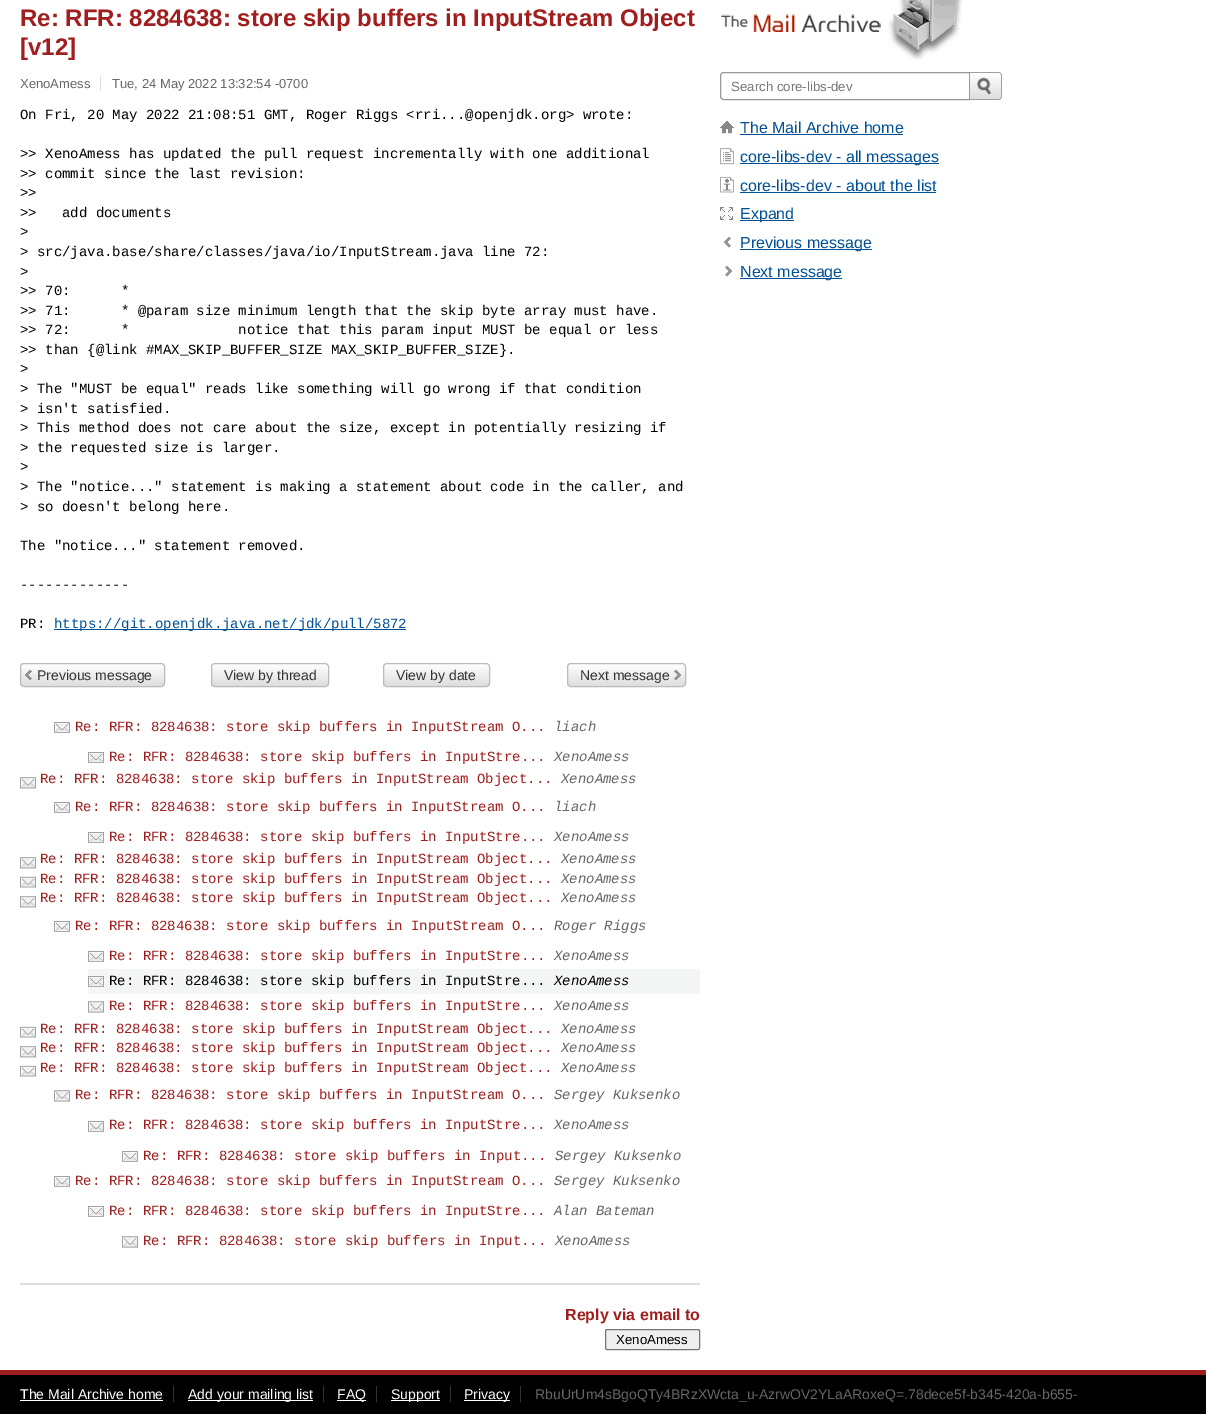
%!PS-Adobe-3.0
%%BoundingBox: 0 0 1206 1414
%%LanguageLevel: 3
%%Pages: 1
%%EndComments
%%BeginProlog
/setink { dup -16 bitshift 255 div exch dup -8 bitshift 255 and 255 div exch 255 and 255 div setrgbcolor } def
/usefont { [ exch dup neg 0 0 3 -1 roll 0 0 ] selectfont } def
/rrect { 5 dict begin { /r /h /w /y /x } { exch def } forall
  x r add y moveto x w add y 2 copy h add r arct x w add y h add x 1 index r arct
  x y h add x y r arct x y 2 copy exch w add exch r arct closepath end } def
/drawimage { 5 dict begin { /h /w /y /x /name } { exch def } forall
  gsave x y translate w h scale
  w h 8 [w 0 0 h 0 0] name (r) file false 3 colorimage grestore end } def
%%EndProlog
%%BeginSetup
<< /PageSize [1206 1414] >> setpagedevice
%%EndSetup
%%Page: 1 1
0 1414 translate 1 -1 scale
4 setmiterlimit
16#FFFFFF setink
0 0 1206 1414 rectfill
/LiberationSans-Bold 24 usefont
16#A01E1E setink
20 26 moveto (Re: RFR: 8284638: store skip buffers in InputStream Object) show
20 55 moveto ([v12]) show
/LiberationSans-Regular 13 usefont
16#666666 setink
20 88 moveto (XenoAmess) show
16#DDDDDD setink
100 76 1 15 rectfill
16#666666 setink
112 88 moveto (Tue, 24 May 2022 13:32:54 -0700) show
/LiberationMono-Regular 14 usefont
16#000000 setink
[
    [(On Fri, 20 May 2022 21:08:51 GMT, Roger Riggs <rri...@openjdk.org> wrote:) 20 119]
    [(>> XenoAmess has updated the pull request incrementally with one additional) 20 158]
    [(>> commit since the last revision:) 20 178]
    [(>>) 20 197]
    [(>>   add documents) 20 217]
    [(>) 20 236]
    [(> src/java.base/share/classes/java/io/InputStream.java line 72:) 20 256]
    [(>) 20 276]
    [(>> 70:      *) 20 295]
    [(>> 71:      * @param size minimum length that the skip byte array must have.) 20 315]
    [(>> 72:      *             notice that this param input MUST be equal or less) 20 334]
    [(>> than {@link #MAX_SKIP_BUFFER_SIZE MAX_SKIP_BUFFER_SIZE}.) 20 354]
    [(>) 20 373]
    [(> The "MUST be equal" reads like something will go wrong if that condition) 20 393]
    [(> isn't satisfied.) 20 413]
    [(> This method does not care about the size, except in potentially resizing if) 20 432]
    [(> the requested size is larger.) 20 452]
    [(>) 20 471]
    [(> The "notice..." statement is making a statement about code in the caller, and) 20 491]
    [(> so doesn't belong here.) 20 511]
    [(The "notice..." statement removed.) 20 550]
    [(-------------) 20 589]
    [(PR:) 20 628]
] { aload pop moveto show } forall
16#005096 setink
54 629 352 1 rectfill
54 628 moveto (https://git.openjdk.java.net/jdk/pull/5872) show
(img1.raw) 20 663 145 24 drawimage
16#BBBBBB setink
20.5 663.5 144 23 3.5 rrect stroke
/LiberationSans-Regular 14 usefont
16#333333 setink
37 680 moveto (Previous message) show
gsave
211 663 118 24 4 rrect clip newpath
gsave 211 664 moveto 329 664 lineto 329 686 lineto 211 686 lineto closepath clip newpath
<< /ShadingType 2 /ColorSpace /DeviceRGB /Coords [270 664 270 686] /Extend [true true] /Function << /FunctionType 2 /Domain [0 1] /C0 [1 1 1] /C1 [0.867 0.867 0.867] /N 1 >> >> shfill grestore
grestore
16#BBBBBB setink
211.5 663.5 117 23 3.5 rrect stroke
16#333333 setink
224 680 moveto (View by thread) show
gsave
383 663 107 24 4 rrect clip newpath
gsave 383 664 moveto 490 664 lineto 490 686 lineto 383 686 lineto closepath clip newpath
<< /ShadingType 2 /ColorSpace /DeviceRGB /Coords [437 664 437 686] /Extend [true true] /Function << /FunctionType 2 /Domain [0 1] /C0 [1 1 1] /C1 [0.867 0.867 0.867] /N 1 >> >> shfill grestore
grestore
16#BBBBBB setink
383.5 663.5 106 23 3.5 rrect stroke
16#333333 setink
396 680 moveto (View by date) show
(img2.raw) 567 663 119 24 drawimage
16#BBBBBB setink
567.5 663.5 118 23 3.5 rrect stroke
16#333333 setink
580 680 moveto (Next message) show
(img3.raw) 54 722 16 11 drawimage
/LiberationMono-Regular 14 usefont
16#A01E1E setink
75 731 moveto (Re: RFR: 8284638: store skip buffers in InputStream O...) show
/LiberationMono-Italic 14 usefont
16#666666 setink
554 731 moveto (liach) show
(img3.raw) 88 752 16 11 drawimage
/LiberationMono-Regular 14 usefont
16#A01E1E setink
109 761 moveto (Re: RFR: 8284638: store skip buffers in InputStre...) show
/LiberationMono-Italic 14 usefont
16#666666 setink
554 761 moveto (XenoAmess) show
(img4.raw) 20 777 16 12 drawimage
/LiberationMono-Regular 14 usefont
16#A01E1E setink
40 783 moveto (Re: RFR: 8284638: store skip buffers in InputStream Object...) show
/LiberationMono-Italic 14 usefont
16#666666 setink
561 783 moveto (XenoAmess) show
(img3.raw) 54 802 16 11 drawimage
/LiberationMono-Regular 14 usefont
16#A01E1E setink
75 811 moveto (Re: RFR: 8284638: store skip buffers in InputStream O...) show
/LiberationMono-Italic 14 usefont
16#666666 setink
554 811 moveto (liach) show
(img3.raw) 88 832 16 11 drawimage
/LiberationMono-Regular 14 usefont
16#A01E1E setink
109 841 moveto (Re: RFR: 8284638: store skip buffers in InputStre...) show
/LiberationMono-Italic 14 usefont
16#666666 setink
554 841 moveto (XenoAmess) show
(img4.raw) 20 857 16 12 drawimage
/LiberationMono-Regular 14 usefont
16#A01E1E setink
40 863 moveto (Re: RFR: 8284638: store skip buffers in InputStream Object...) show
/LiberationMono-Italic 14 usefont
16#666666 setink
561 863 moveto (XenoAmess) show
(img5.raw) 20 876 16 12 drawimage
/LiberationMono-Regular 14 usefont
16#A01E1E setink
40 883 moveto (Re: RFR: 8284638: store skip buffers in InputStream Object...) show
/LiberationMono-Italic 14 usefont
16#666666 setink
561 883 moveto (XenoAmess) show
(img4.raw) 20 896 16 12 drawimage
/LiberationMono-Regular 14 usefont
16#A01E1E setink
40 902 moveto (Re: RFR: 8284638: store skip buffers in InputStream Object...) show
/LiberationMono-Italic 14 usefont
16#666666 setink
561 902 moveto (XenoAmess) show
(img3.raw) 54 921 16 11 drawimage
/LiberationMono-Regular 14 usefont
16#A01E1E setink
75 930 moveto (Re: RFR: 8284638: store skip buffers in InputStream O...) show
/LiberationMono-Italic 14 usefont
16#666666 setink
554 930 moveto (Roger Riggs) show
(img3.raw) 88 951 16 11 drawimage
/LiberationMono-Regular 14 usefont
16#A01E1E setink
109 960 moveto (Re: RFR: 8284638: store skip buffers in InputStre...) show
/LiberationMono-Italic 14 usefont
16#666666 setink
554 960 moveto (XenoAmess) show
16#F4F5F5 setink
88 969 612 25 rectfill
(img6.raw) 88 976 16 11 drawimage
/LiberationMono-Regular 14 usefont
16#000000 setink
109 985 moveto (Re: RFR: 8284638: store skip buffers in InputStre...) show
/LiberationMono-Italic 14 usefont
554 985 moveto (XenoAmess) show
(img7.raw) 88 1001 16 12 drawimage
/LiberationMono-Regular 14 usefont
16#A01E1E setink
109 1010 moveto (Re: RFR: 8284638: store skip buffers in InputStre...) show
/LiberationMono-Italic 14 usefont
16#666666 setink
554 1010 moveto (XenoAmess) show
(img5.raw) 20 1026 16 12 drawimage
/LiberationMono-Regular 14 usefont
16#A01E1E setink
40 1033 moveto (Re: RFR: 8284638: store skip buffers in InputStream Object...) show
/LiberationMono-Italic 14 usefont
16#666666 setink
561 1033 moveto (XenoAmess) show
(img4.raw) 20 1046 16 12 drawimage
/LiberationMono-Regular 14 usefont
16#A01E1E setink
40 1052 moveto (Re: RFR: 8284638: store skip buffers in InputStream Object...) show
/LiberationMono-Italic 14 usefont
16#666666 setink
561 1052 moveto (XenoAmess) show
(img5.raw) 20 1065 16 12 drawimage
/LiberationMono-Regular 14 usefont
16#A01E1E setink
40 1072 moveto (Re: RFR: 8284638: store skip buffers in InputStream Object...) show
/LiberationMono-Italic 14 usefont
16#666666 setink
561 1072 moveto (XenoAmess) show
(img7.raw) 54 1090 16 12 drawimage
/LiberationMono-Regular 14 usefont
16#A01E1E setink
75 1099 moveto (Re: RFR: 8284638: store skip buffers in InputStream O...) show
/LiberationMono-Italic 14 usefont
16#666666 setink
554 1099 moveto (Sergey Kuksenko) show
(img3.raw) 88 1121 16 11 drawimage
/LiberationMono-Regular 14 usefont
16#A01E1E setink
109 1129 moveto (Re: RFR: 8284638: store skip buffers in InputStre...) show
/LiberationMono-Italic 14 usefont
16#666666 setink
554 1129 moveto (XenoAmess) show
(img3.raw) 122 1151 16 11 drawimage
/LiberationMono-Regular 14 usefont
16#A01E1E setink
143 1160 moveto (Re: RFR: 8284638: store skip buffers in Input...) show
/LiberationMono-Italic 14 usefont
16#666666 setink
555 1160 moveto (Sergey Kuksenko) show
(img3.raw) 54 1176 16 11 drawimage
/LiberationMono-Regular 14 usefont
16#A01E1E setink
75 1185 moveto (Re: RFR: 8284638: store skip buffers in InputStream O...) show
/LiberationMono-Italic 14 usefont
16#666666 setink
554 1185 moveto (Sergey Kuksenko) show
(img3.raw) 88 1206 16 11 drawimage
/LiberationMono-Regular 14 usefont
16#A01E1E setink
109 1215 moveto (Re: RFR: 8284638: store skip buffers in InputStre...) show
/LiberationMono-Italic 14 usefont
16#666666 setink
554 1215 moveto (Alan Bateman) show
(img7.raw) 122 1236 16 12 drawimage
/LiberationMono-Regular 14 usefont
16#A01E1E setink
143 1245 moveto (Re: RFR: 8284638: store skip buffers in Input...) show
/LiberationMono-Italic 14 usefont
16#666666 setink
555 1245 moveto (XenoAmess) show
16#DDDDDD setink
20 1283 680 2 rectfill
/LiberationSans-Bold 16 usefont
16#A01E1E setink
565 1320 moveto (Reply via email to) show
16#EFEFEF setink
605.5 1329.5 94 20 1.5 rrect gsave fill grestore
16#767676 setink
stroke
/LiberationSans-Regular 13.25 usefont
16#000000 setink
616 1344 moveto (XenoAmess) show
(img8.raw) 721 0 241 60 drawimage
16#999999 setink
724 72.5 moveto 969.5 72.5 lineto 969.5 99.5 lineto 724 99.5 lineto 722 99.5 720.5 98 720.5 96 curveto 720.5 76 lineto 720.5 74 722 72.5 724 72.5 curveto closepath stroke
16#777777 setink
731 91 moveto (Search core-libs-dev) show
(img9.raw) 970 72 32 28 drawimage
(img10.raw) 720 121 14 13 drawimage
/LiberationSans-Regular 16 usefont
16#005096 setink
740 133 moveto (The Mail Archive home) show
740 134 163 1 rectfill
(img11.raw) 720 148 14 17 drawimage
740 163 199 1 rectfill
740 162 moveto (core-libs-dev - all messages) show
(img12.raw) 720 176 14 17 drawimage
740 191 moveto (core-libs-dev - about the list) show
740 192 196 1 rectfill
(img13.raw) 720 207 13 13 drawimage
740 220 54 1 rectfill
740 219 moveto (Expand) show
(img14.raw) 724 237 7 11 drawimage
740 249 132 1 rectfill
740 248 moveto (Previous message) show
(img15.raw) 725 266 7 11 drawimage
740 278 102 1 rectfill
740 277 moveto (Next message) show
16#000000 setink
0 1375 1206 39 rectfill
16#A01E1E setink
0 1370 1206 5 rectfill
/LiberationSans-Regular 14 usefont
16#FFFFFF setink
20 1399 moveto (The Mail Archive home) show
[
    [173 1386 1 16 16#333333]
    [20 1400 143 1 16#FFFFFF]
    [188 1400 125 1 16#FFFFFF]
] { aload pop setink rectfill } forall
188 1399 moveto (Add your mailing list) show
16#333333 setink
323 1386 1 16 rectfill
16#FFFFFF setink
337 1400 29 1 rectfill
337 1399 moveto (FAQ) show
16#333333 setink
376 1386 1 16 rectfill
16#FFFFFF setink
391 1400 49 1 rectfill
391 1399 moveto (Support) show
16#333333 setink
450 1386 1 16 rectfill
16#FFFFFF setink
464 1400 46 1 rectfill
464 1399 moveto (Privacy) show
16#333333 setink
520 1386 1 16 rectfill
16#666666 setink
535 1399 moveto (RbuUrUm4sBgoQTy4BRzXWcta_u-AzrwOV2YLaARoxeQ=.78dece5f-b345-420a-b655-) show
showpage
%%EOF
